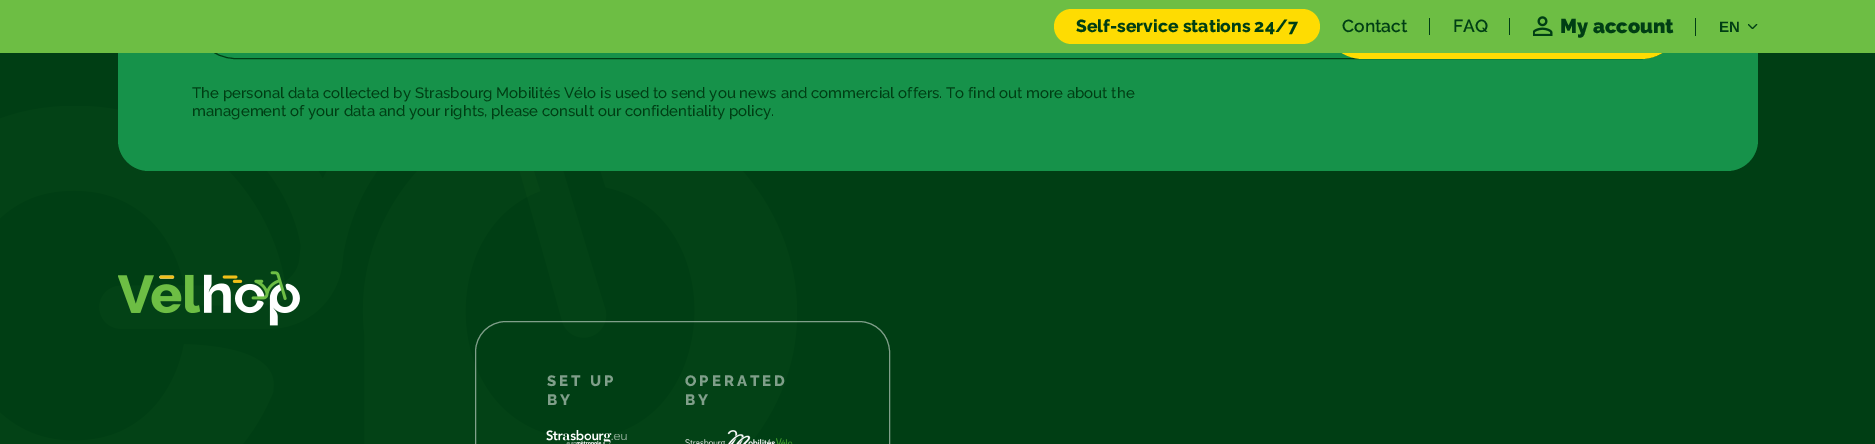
%!PS-Adobe-3.0
%%BoundingBox: 0 0 1875 444
%%LanguageLevel: 3
%%Pages: 1
%%EndComments
%%BeginProlog
/setink { dup -16 bitshift 255 div exch dup -8 bitshift 255 and 255 div exch 255 and 255 div setrgbcolor } def
/usefont { [ exch dup neg 0 0 3 -1 roll 0 0 ] selectfont } def
/setalpha { dup .setfillconstantalpha .setstrokeconstantalpha } def
/rrect { 5 dict begin { /r /h /w /y /x } { exch def } forall
  x r add y moveto x w add y 2 copy h add r arct x w add y h add x 1 index r arct
  x y h add x y r arct x y 2 copy exch w add exch r arct closepath end } def
/drawimage { 5 dict begin { /h /w /y /x /name } { exch def } forall
  gsave x y translate w h scale
  w h 8 [w 0 0 h 0 0] name (r) file false 3 colorimage grestore end } def
%%EndProlog
%%BeginSetup
<< /PageSize [1875 444] /PageUsesTransparency true >> setpagedevice
%%EndSetup
%%Page: 1 1
0 .pushpdf14devicefilter
0 444 translate 1 -1 scale
4 setmiterlimit
16#003E14 setink
0 0 1875 444 rectfill
(img3.raw) 0 106 797 338 drawimage
16#16924A setink
118 -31 1640 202 31 rrect fill
16#003E14 setink
193.5 -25.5 1489 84 42 rrect stroke
16#FEDC02 setink
1321 -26 362 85 42.5 rrect fill
16#6DBE44 setink
0 0 1875 53 rectfill
16#FEDC02 setink
1054 9 266 35 17.5 rrect fill
/Raleway-ExtraBold 17.5 usefont
16#003E14 setink
1076 32 moveto (Self-service stations 24/7) show
/Raleway-SemiBold 17.5 usefont
1342 32 moveto (Contact) show
1429 18 1 17 rectfill
1453 32 moveto (FAQ) show
1509 18 1 17 rectfill
(img1.raw) 1533 16 20 20 drawimage
/Raleway-Black 20 usefont
1560 33 moveto (My account) show
1695 18 1 18 rectfill
(img2.raw) 1748 24 10 5 drawimage
/LiberationSans-Bold 15 usefont
1719 32 moveto (EN) show
/Raleway-Medium 15 usefont
192 98 moveto (The personal data collected by Strasbourg Mobilités Vélo is used to send you news and commercial offers. To find out more about the) show
192 116 moveto (management of your data and your rights, please consult our confidentiality policy.) show
(img4.raw) 118 271 182 55 drawimage
0.5 setalpha
16#FFFFFF setink
475.5 321.5 414 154 30.5 rrect stroke
/Raleway-ExtraBold 15 usefont
1 setalpha
16#809F8A setink
547 386 moveto 3 0 (SET UP) ashow
547 405 moveto 3 0 (BY) ashow
(img5.raw) 546 430 81 14 drawimage
685 386 moveto 3 0 (OPERATED) ashow
685 405 moveto 3 0 (BY) ashow
(img6.raw) 685 430 108 14 drawimage
.poppdf14devicefilter showpage
%%EOF
